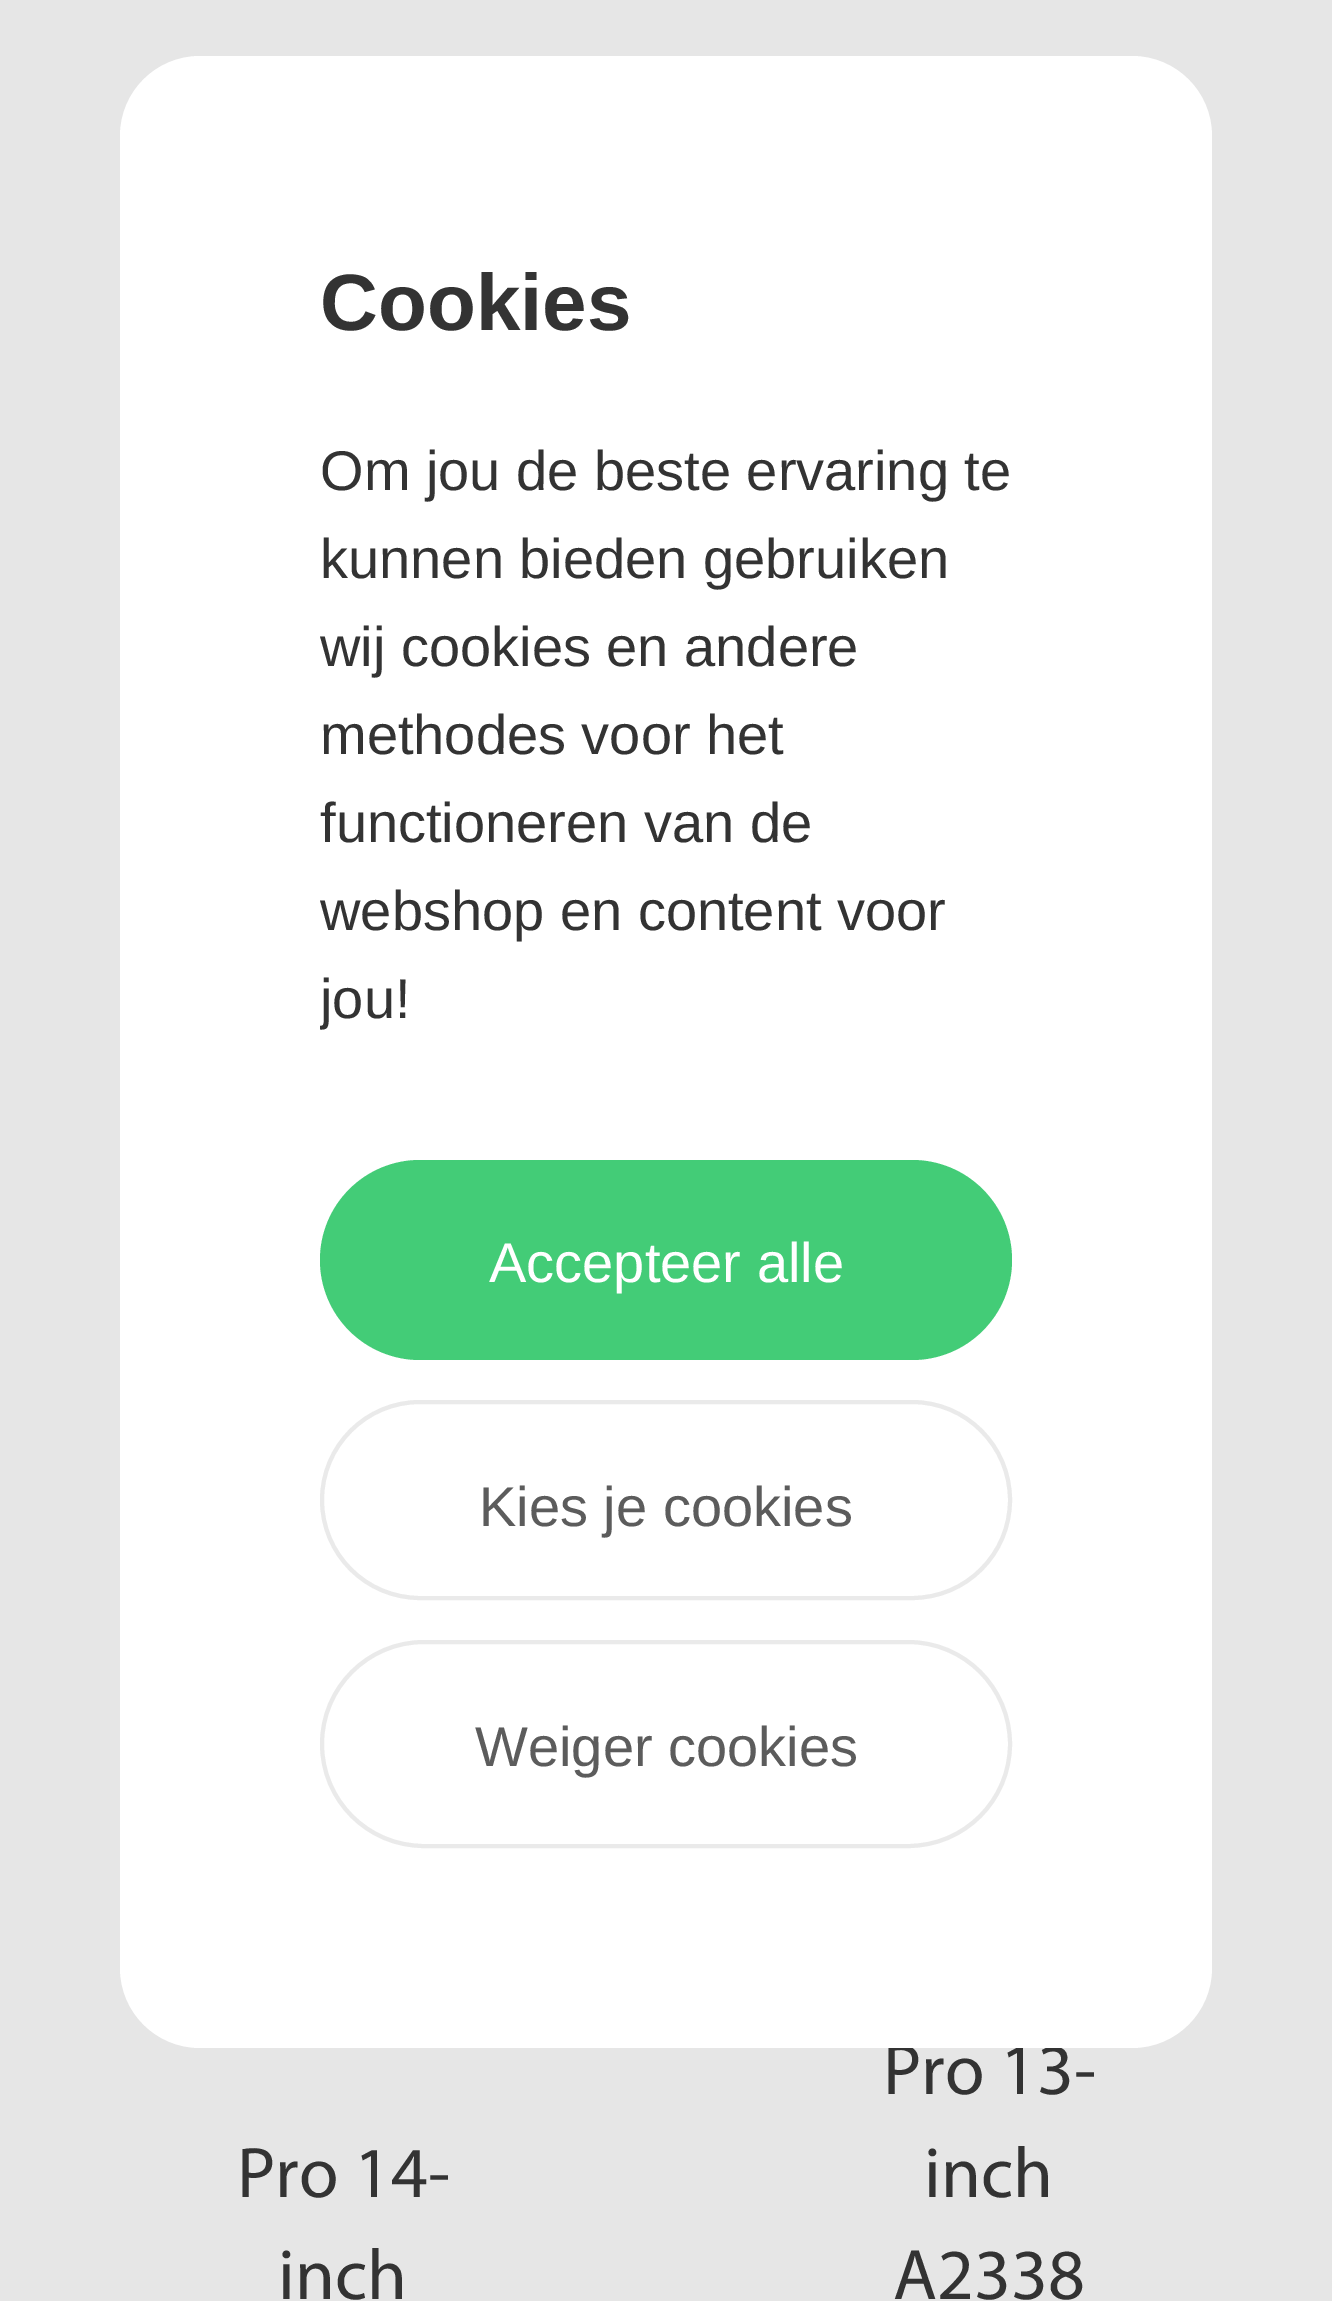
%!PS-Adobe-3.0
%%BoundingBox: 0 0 1332 2301
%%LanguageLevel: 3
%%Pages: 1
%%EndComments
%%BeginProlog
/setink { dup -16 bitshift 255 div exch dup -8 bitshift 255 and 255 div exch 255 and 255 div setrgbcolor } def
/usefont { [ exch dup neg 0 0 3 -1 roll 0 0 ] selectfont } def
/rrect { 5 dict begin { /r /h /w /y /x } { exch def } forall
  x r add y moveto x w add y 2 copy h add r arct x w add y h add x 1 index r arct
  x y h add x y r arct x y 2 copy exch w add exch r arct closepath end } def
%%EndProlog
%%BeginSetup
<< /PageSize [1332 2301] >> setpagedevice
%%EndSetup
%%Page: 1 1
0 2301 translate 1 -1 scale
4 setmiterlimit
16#E6E6E6 setink
0 0 1332 2301 rectfill
/Myriad-Regular 72 usefont
16#333333 setink
883 2094 moveto (Pro 13-) show
16#FFFFFF setink
120 56 1092 1992 80 rrect fill
/LiberationSans-Bold 80 usefont
16#333333 setink
320 330 moveto (Cookies) show
/LiberationSans-Regular 56 usefont
[
    [(Om jou de beste ervaring te) 320 490]
    [(kunnen bieden gebruiken) 320 578]
    [(wij cookies en andere) 320 666]
    [(methodes voor het) 320 754]
    [(functioneren van de) 320 842]
    [(webshop en content voor) 320 930]
] { aload pop moveto show } forall
gsave
320 424 692 616 rectclip
320 1018 moveto (jou!) show
grestore
16#43CC77 setink
320 1160 692 200 100 rrect fill
16#FFFFFF setink
489 1282 moveto (Accepteer alle) show
16#EAEAEA setink
4 setlinewidth
322 1402 688 196 98 rrect stroke
16#5C5C5C setink
479 1526 moveto (Kies je cookies) show
16#EAEAEA setink
322 1642 688 204 102 rrect stroke
16#5C5C5C setink
475 1766 moveto (Weiger cookies) show
/Myriad-Regular 72 usefont
16#333333 setink
[
    [(Pro 14-) 237 2197]
    [(inch) 278 2299]
    [(inch) 924 2197]
    [(A2338) 893 2299]
] { aload pop moveto show } forall
showpage
%%EOF
